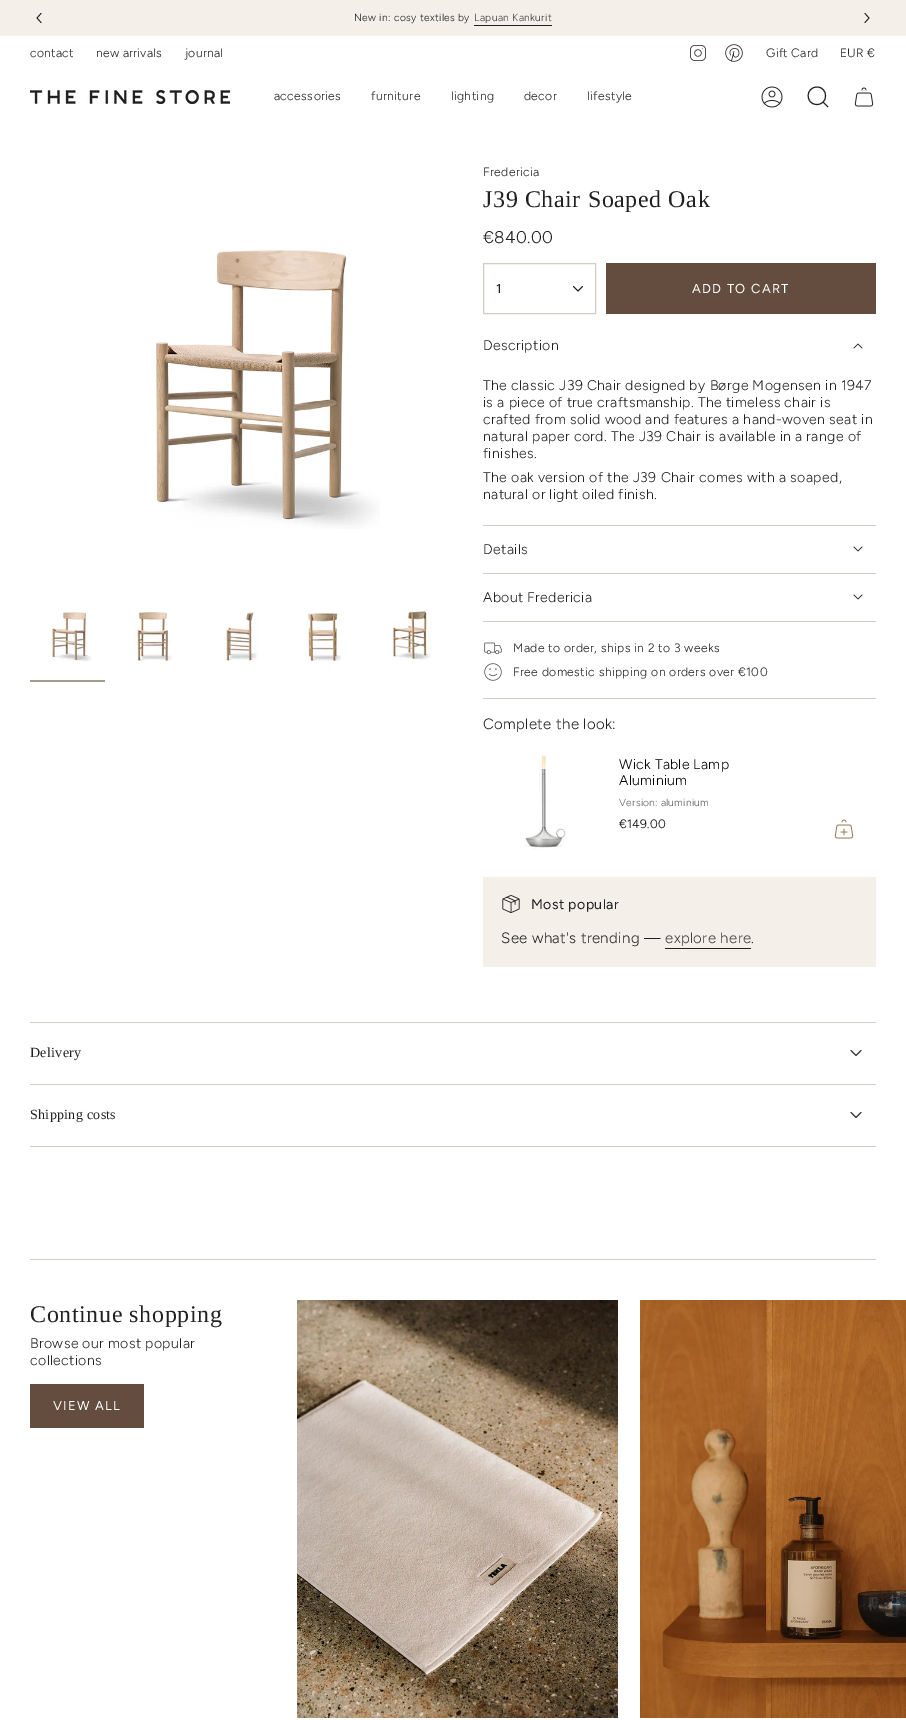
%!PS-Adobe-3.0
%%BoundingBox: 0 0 906 1720
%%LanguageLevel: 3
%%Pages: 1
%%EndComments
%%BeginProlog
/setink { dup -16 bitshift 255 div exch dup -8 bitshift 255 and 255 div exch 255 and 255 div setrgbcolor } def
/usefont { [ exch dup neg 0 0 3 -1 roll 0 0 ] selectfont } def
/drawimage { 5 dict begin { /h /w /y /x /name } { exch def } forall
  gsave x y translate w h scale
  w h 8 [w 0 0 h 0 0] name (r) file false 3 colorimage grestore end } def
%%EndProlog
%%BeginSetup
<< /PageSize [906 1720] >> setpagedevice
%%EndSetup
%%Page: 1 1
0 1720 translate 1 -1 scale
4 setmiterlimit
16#FFFFFF setink
0 0 906 1720 rectfill
16#F4F0E9 setink
0 0 906 36 rectfill
16#212121 setink
0.8 setlinewidth
1 setlinecap
1 setlinejoin
41 13.5 moveto 37 18 lineto 41 22.5 lineto stroke
/Figtree-Light 10.25 usefont
354 21 moveto 0.38 0 (New in: cosy textiles by) ashow
16#41403F setink
474 21 moveto 0.38 0 (Lapuan Kankurit) ashow
16#212121 setink
474 25 78 1 rectfill
865 13.5 moveto 869 18 lineto 865 22.5 lineto stroke
/Figtree-Light 12.2 usefont
30 57 moveto 0.25 0 (contact) ashow
96 57 moveto 0.25 0 (new arrivals) ashow
185 57 moveto 0.25 0 (journal) ashow
(img1.raw) 690 45 16 16 drawimage
(img2.raw) 725 44 18 18 drawimage
766 57 moveto 0.25 0 (Gift Card) ashow
840 57 moveto 0.25 0 (EUR €) ashow
(img3.raw) 30 90 200 14 drawimage
274 100 moveto 0.38 0 (accessories) ashow
371 100 moveto 0.38 0 (furniture) ashow
451 100 moveto 0.38 0 (lighting) ashow
524 100 moveto 0.38 0 (decor) ashow
587 100 moveto 0.38 0 (lifestyle) ashow
(img4.raw) 761 86 22 22 drawimage
1 setlinewidth
0 setlinecap
0 setlinejoin
817 87 moveto 828.5 87 828.5 105 816.5 104.5 curveto 805 104 805.5 87 817 87 curveto closepath 823 102 moveto 828 107 lineto stroke
(img5.raw) 854 87 20 20 drawimage
(img6.raw) 155 249 225 280 drawimage
(img7.raw) 50 611 42 51 drawimage
16#A49C8B setink
30 680 75 2 rectfill
(img8.raw) 131 611 42 51 drawimage
(img9.raw) 224 612 34 49 drawimage
(img10.raw) 307 612 34 50 drawimage
(img11.raw) 391 610 40 51 drawimage
16#212121 setink
483 176 moveto 0.38 0 (Fredericia) ashow
/LiberationSerif-Regular 24 usefont
483 207 moveto 0.6 0 (J39 Chair Soaped Oak) ashow
/Figtree-Light 17 usefont
483 243 moveto 0.38 0 (€840.00) ashow
16#D1CDC4 setink
483.5 263.5 112 50 rectstroke
/Figtree-Regular 13 usefont
16#212121 setink
496 293 moveto (1) show
0.8 setlinewidth
1 setlinecap
1 setlinejoin
573.5 286.5 moveto 578 291 lineto 582.5 286.5 lineto stroke
16#644D3E setink
606 263 270 51 rectfill
16#FFFFFF setink
692 293 moveto 1.25 0 (ADD TO CART) ashow
16#D1CDC4 setink
483 525 393 1 rectfill
/Figtree-Light 14.1 usefont
16#212121 setink
483 350 moveto 0.38 0 (Description) ashow
0.7 setlinewidth
854 348 moveto 858 344 lineto 862 348 lineto stroke
483 390 moveto 0.38 0 (The classic J39 Chair designed by Børge Mogensen in 1947) ashow
483 407 moveto 0.38 0 (is a piece of true craftsmanship. The timeless chair is) ashow
483 424 moveto 0.38 0 (crafted from solid wood and features a hand-woven seat in) ashow
483 441 moveto 0.38 0 (natural paper cord. The J39 Chair is available in a range of) ashow
483 458 moveto 0.38 0 (finishes.) ashow
483 482 moveto 0.38 0 (The oak version of the J39 Chair comes with a soaped,) ashow
483 499 moveto 0.38 0 (natural or light oiled finish.) ashow
16#D1CDC4 setink
483 573 393 1 rectfill
16#212121 setink
483 554 moveto 0.38 0 (Details) ashow
854 547 moveto 858 551 lineto 862 547 lineto stroke
16#D1CDC4 setink
483 621 393 1 rectfill
16#212121 setink
483 602 moveto 0.38 0 (About Fredericia) ashow
854 595 moveto 858 599 lineto 862 595 lineto stroke
(img12.raw) 484 642 18 13 drawimage
/Figtree-Light 12.2 usefont
513 652 moveto 0.38 0 (Made to order, ships in 2 to 3 weeks) ashow
(img13.raw) 484 663 18 18 drawimage
513 676 moveto 0.38 0 (Free domestic shipping on orders over €100) ashow
16#D1CDC4 setink
483 698 393 1 rectfill
/Figtree-Light 15 usefont
16#212121 setink
483 729 moveto 0.38 0 (Complete the look:) ashow
(img14.raw) 524 755 42 94 drawimage
/Figtree-Light 14.1 usefont
16#000000 setink
619 769 moveto 0.3 0 (Wick Table Lamp) ashow
619 785 moveto 0.3 0 (Aluminium) ashow
/Figtree-Light 10.25 usefont
16#646464 setink
619 806 moveto 0.25 0 (Version: aluminium) ashow
/Figtree-Light 12.2 usefont
16#000000 setink
619 828 moveto 0.25 0 (€149.00) ashow
(img15.raw) 834 819 20 20 drawimage
16#F4F0E9 setink
483 877 393 90 rectfill
(img16.raw) 502 895 18 18 drawimage
/Figtree-Regular 14.1 usefont
16#212121 setink
531 909 moveto 0.38 0 (Most popular) ashow
/Figtree-Light 15 usefont
501 943 moveto 0.38 0 (See what's trending —) ashow
16#41403F setink
665 943 moveto 0.38 0 (explore here) ashow
16#212121 setink
665 948 86 1 rectfill
751 943 moveto 0.38 0 (.) ashow
16#D1CDC4 setink
30 1022 846 1 rectfill
/LiberationSerif-Regular 14 usefont
16#212121 setink
30 1057 moveto 0.3 0 (Delivery) ashow
0.8 setlinewidth
851 1050.5 moveto 856 1055.5 lineto 861 1050.5 lineto stroke
16#D1CDC4 setink
30 1084 846 1 rectfill
30 1146 846 1 rectfill
16#212121 setink
30 1119 moveto 0.3 0 (Shipping costs) ashow
851 1112.5 moveto 856 1117.5 lineto 861 1112.5 lineto stroke
16#D1CDC4 setink
30 1259 846 1 rectfill
/LiberationSerif-Regular 24 usefont
16#212121 setink
30 1322 moveto 0.6 0 (Continue shopping) ashow
/Figtree-Light 14.1 usefont
30 1348 moveto 0.38 0 (Browse our most popular) ashow
30 1365 moveto 0.38 0 (collections) ashow
16#644D3E setink
30 1384 114 44 rectfill
/Figtree-Regular 13 usefont
16#FFFFFF setink
53 1410 moveto 1.25 0 (VIEW ALL) ashow
(img17.raw) 297 1300 321 418 drawimage
(img18.raw) 640 1300 266 418 drawimage
showpage
%%EOF
